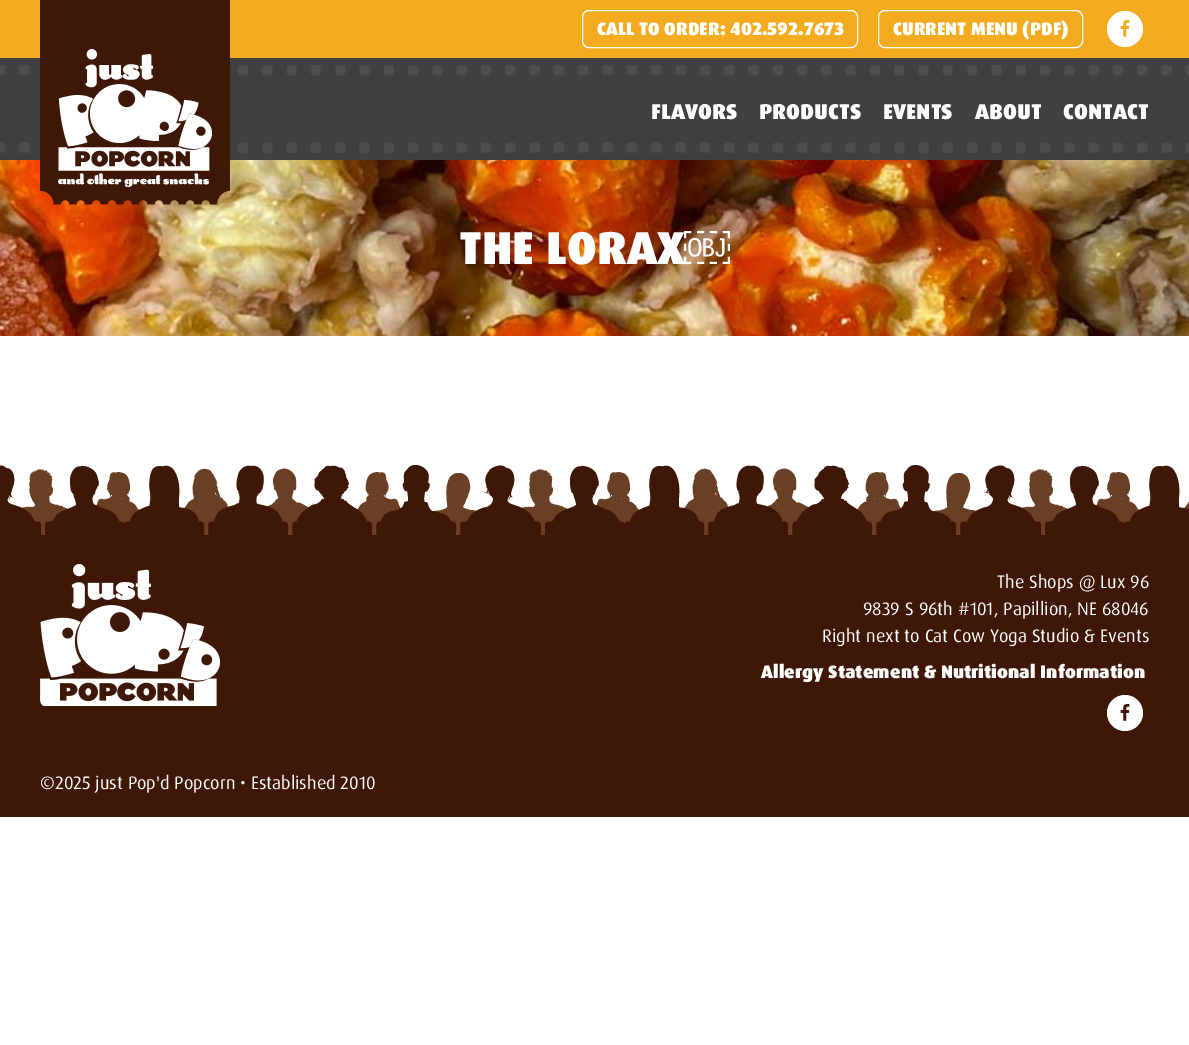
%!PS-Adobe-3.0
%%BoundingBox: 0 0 1189 1045
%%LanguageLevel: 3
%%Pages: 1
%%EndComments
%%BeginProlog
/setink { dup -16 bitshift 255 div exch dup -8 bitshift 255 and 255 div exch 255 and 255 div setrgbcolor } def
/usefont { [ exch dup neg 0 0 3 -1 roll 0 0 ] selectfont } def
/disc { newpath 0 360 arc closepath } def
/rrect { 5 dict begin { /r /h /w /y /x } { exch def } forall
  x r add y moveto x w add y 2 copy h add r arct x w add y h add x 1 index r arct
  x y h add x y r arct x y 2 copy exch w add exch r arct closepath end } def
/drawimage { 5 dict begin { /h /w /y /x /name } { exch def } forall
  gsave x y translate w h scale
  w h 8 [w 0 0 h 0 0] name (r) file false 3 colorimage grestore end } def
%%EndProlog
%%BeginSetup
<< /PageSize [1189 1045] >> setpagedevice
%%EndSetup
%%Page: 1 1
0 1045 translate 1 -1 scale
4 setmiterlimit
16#FFFFFF setink
0 0 1189 1045 rectfill
16#F3AC1F setink
0 0 1189 58 rectfill
16#FFFFFF setink
582.5 10.5 275 37 6.5 rrect stroke
/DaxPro-Black 18 usefont
597 35 moveto (CALL TO ORDER: 402.592.7673) show
878.5 10.5 204 37 6.5 rrect stroke
893 35 moveto (CURRENT MENU \(PDF\)) show
1125 29 18 disc fill
(img1.raw) 1120 20 10 17 drawimage
(img2.raw) 0 58 1189 102 drawimage
(img5.raw) 0 160 1189 176 drawimage
(img3.raw) 40 80 190 125 drawimage
16#3E1707 setink
40 0 190 80 rectfill
(img4.raw) 58 49 154 138 drawimage
/DaxPro-Black 21.5 usefont
16#FFFFFF setink
[
    [(FLAVORS) 651 119]
    [(PRODUCTS) 759 119]
    [(EVENTS) 883 119]
    [(ABOUT) 975 119]
    [(CONTACT) 1063 119]
] { aload pop moveto show } forall
/DaxPro-Black 46 usefont
459 264 moveto (THE LORAX) show
/LiberationSans-Bold 46 usefont
684 264 moveto (￼) show
(img6.raw) 0 465 1189 99 drawimage
16#3E1707 setink
0 564 1189 253 rectfill
(img7.raw) 40 564 180 142 drawimage
/DaxPro-Regular 18 usefont
16#FFFFFF setink
[
    [(The Shops @ Lux 96) 997 588]
    [(9839 S 96th #101, Papillion, NE 68046) 863 615]
    [(Right next to Cat Cow Yoga Studio & Events) 822 642]
] { aload pop moveto show } forall
/DaxPro-Black 18 usefont
761 678 moveto (Allergy Statement & Nutritional Information) show
1125 713 18 disc fill
(img8.raw) 1120 704 10 17 drawimage
/DaxPro-Regular 18 usefont
40 789 moveto (©2025 just Pop'd Popcorn • Established 2010) show
showpage
%%EOF
